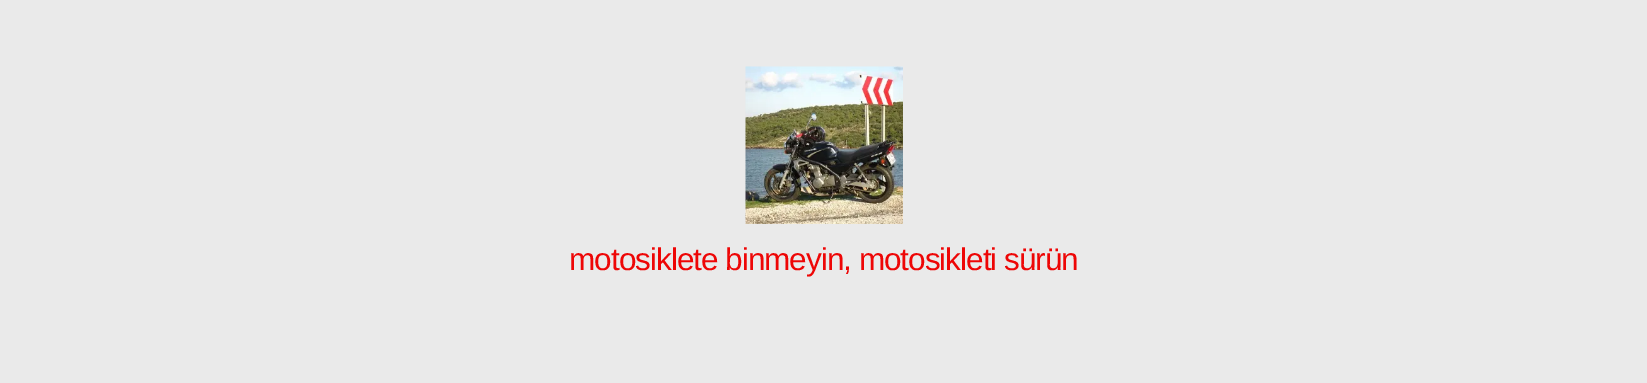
%!PS-Adobe-3.0
%%BoundingBox: 0 0 1647 383
%%LanguageLevel: 3
%%Pages: 1
%%EndComments
%%BeginProlog
/setink { dup -16 bitshift 255 div exch dup -8 bitshift 255 and 255 div exch 255 and 255 div setrgbcolor } def
/usefont { [ exch dup neg 0 0 3 -1 roll 0 0 ] selectfont } def
/drawimage { 5 dict begin { /h /w /y /x /name } { exch def } forall
  gsave x y translate w h scale
  w h 8 [w 0 0 h 0 0] name (r) file false 3 colorimage grestore end } def
%%EndProlog
%%BeginSetup
<< /PageSize [1647 383] >> setpagedevice
%%EndSetup
%%Page: 1 1
0 383 translate 1 -1 scale
4 setmiterlimit
16#EAEAEA setink
0 0 1647 383 rectfill
(img1.raw) 745 66 158 158 drawimage
/LiberationSans-Regular 31.5 usefont
16#EE0606 setink
569 270 moveto -1 0 (motosiklete binmeyin, motosikleti sürün) ashow
showpage
%%EOF
